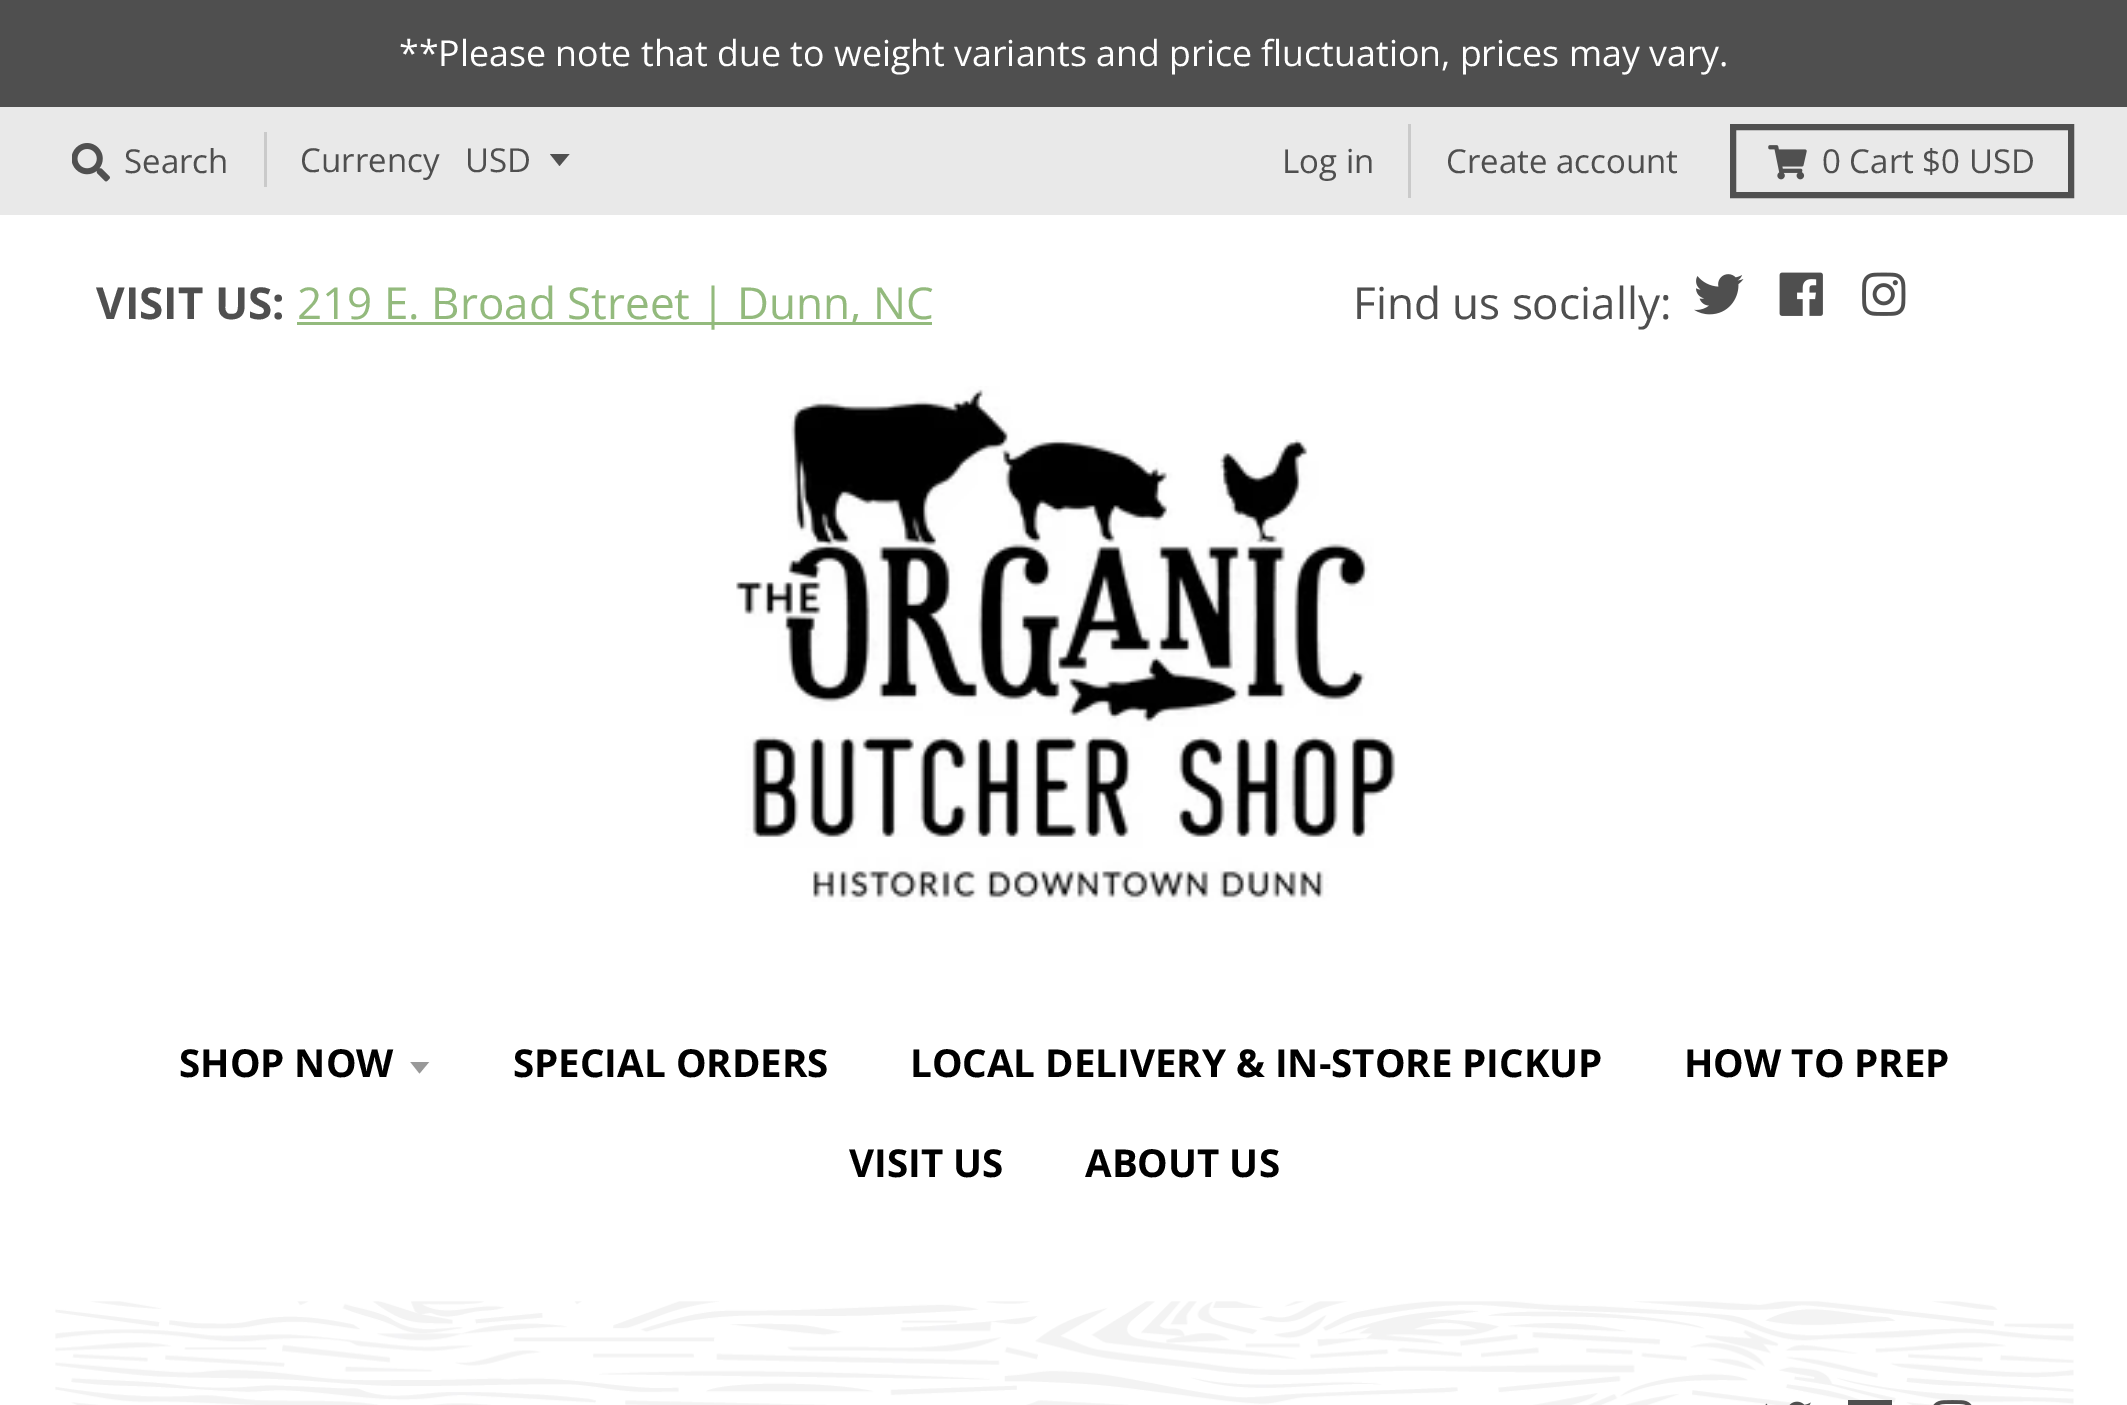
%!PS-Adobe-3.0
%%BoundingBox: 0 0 2127 1405
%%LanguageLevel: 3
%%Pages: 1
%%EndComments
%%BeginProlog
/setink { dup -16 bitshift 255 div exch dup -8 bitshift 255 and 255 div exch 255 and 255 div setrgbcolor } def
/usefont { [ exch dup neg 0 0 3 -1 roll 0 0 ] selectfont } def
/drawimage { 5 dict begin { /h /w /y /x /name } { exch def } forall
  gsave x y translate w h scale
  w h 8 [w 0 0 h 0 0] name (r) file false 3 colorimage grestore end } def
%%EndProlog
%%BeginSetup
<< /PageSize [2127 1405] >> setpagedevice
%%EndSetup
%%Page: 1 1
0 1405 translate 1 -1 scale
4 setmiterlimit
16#FFFFFF setink
0 0 2127 1405 rectfill
16#4F4F4F setink
0 0 2127 107 rectfill
/OpenSans-Regular 35.75 usefont
16#FFFFFF setink
399 66 moveto (**Please note that due to weight variants and price fluctuation, prices may vary.) show
16#E9E9E9 setink
0 107 2127 108 rectfill
(img1.raw) 72 143 38 39 drawimage
/OpenSans-Regular 33 usefont
16#4F4F4F setink
124 173 moveto (Search) show
16#CACACA setink
264 132 3 55 rectfill
16#4F4F4F setink
300 172 moveto (Currency) show
16#505050 setink
550 154 moveto 559.5 166 lineto 569.5 154 lineto closepath fill
16#4F4F4F setink
465 172 moveto (USD) show
16#CACACA setink
1408 124 3 74 rectfill
16#4F4F4F setink
1282 173 moveto (Log in) show
1446 173 moveto (Create account) show
16#505050 setink
6 setlinewidth
1733 127 338 68 rectstroke
(img2.raw) 1768 145 39 35 drawimage
16#4F4F4F setink
1822 173 moveto (0 Cart $0 USD) show
/OpenSans-Bold 44 usefont
96 319 moveto (VISIT US:) show
16#93BA7D setink
297 322 635 3 rectfill
/OpenSans-Regular 44 usefont
297 319 moveto (219 E. Broad Street | Dunn, NC) show
16#4F4F4F setink
1353 319 moveto (Find us socially:) show
(img3.raw) 1694 274 50 41 drawimage
(img4.raw) 1779 272 44 44 drawimage
(img5.raw) 1862 272 44 44 drawimage
(img6.raw) 736 386 660 516 drawimage
/OpenSans-Bold 38.5 usefont
16#000000 setink
179 1077 moveto (SHOP NOW) show
gsave
410 1062 22 13 rectclip
16#999999 setink
410 1061.5 moveto 419.5 1073.5 lineto 429.5 1061.5 lineto closepath fill
grestore
[
    [(SPECIAL ORDERS) 513 1077]
    [(LOCAL DELIVERY & IN-STORE PICKUP) 910 1077]
    [(HOW TO PREP) 1684 1077]
    [(VISIT US) 849 1177]
    [(ABOUT US) 1085 1177]
] { aload pop moveto show } forall
(img7.raw) 55 1301 2019 104 drawimage
(img8.raw) 1765 1401 46 4 drawimage
16#4F4F4F setink
1848 1400 44 5 rectfill
(img9.raw) 1933 1400 39 5 drawimage
showpage
%%EOF
